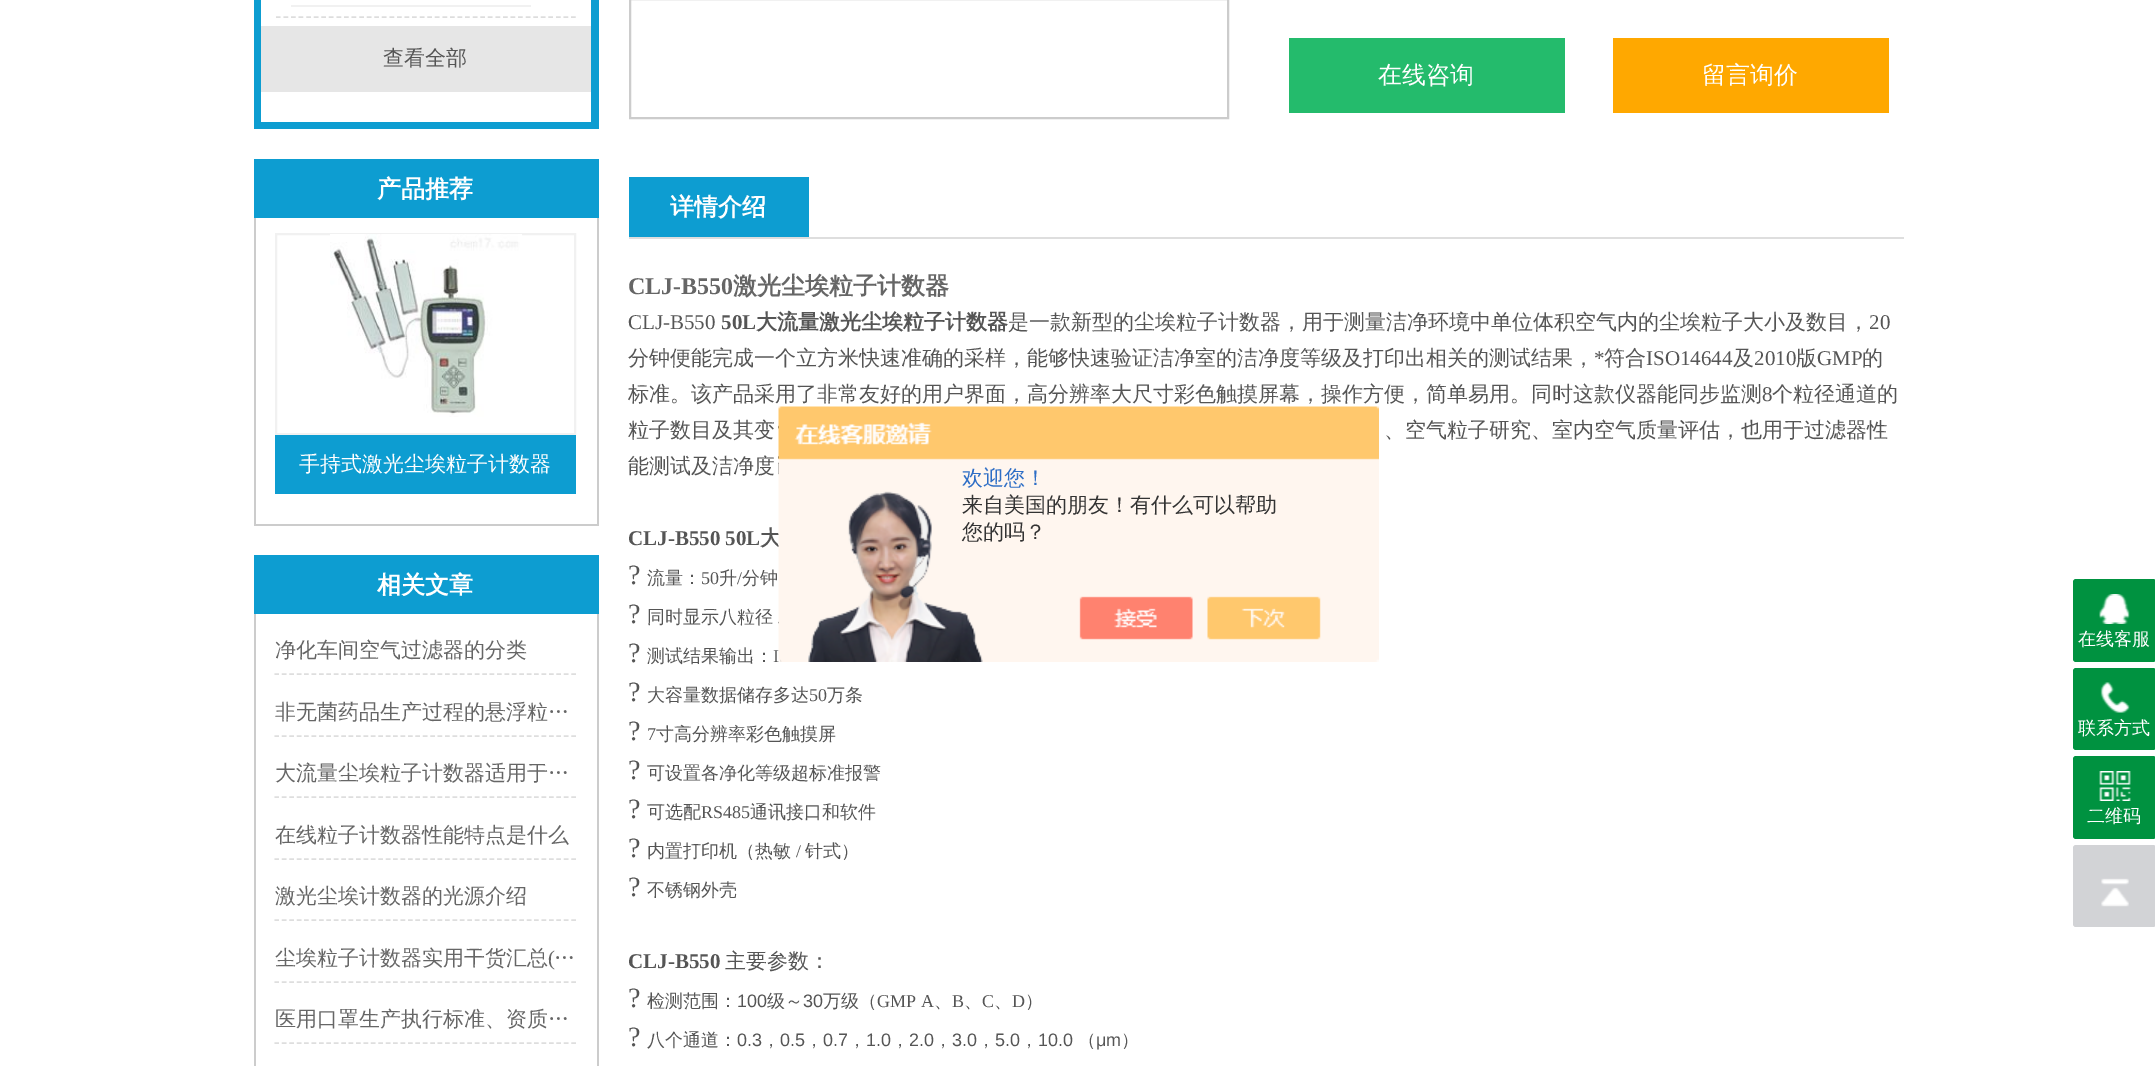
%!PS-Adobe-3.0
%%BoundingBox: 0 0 2155 1066
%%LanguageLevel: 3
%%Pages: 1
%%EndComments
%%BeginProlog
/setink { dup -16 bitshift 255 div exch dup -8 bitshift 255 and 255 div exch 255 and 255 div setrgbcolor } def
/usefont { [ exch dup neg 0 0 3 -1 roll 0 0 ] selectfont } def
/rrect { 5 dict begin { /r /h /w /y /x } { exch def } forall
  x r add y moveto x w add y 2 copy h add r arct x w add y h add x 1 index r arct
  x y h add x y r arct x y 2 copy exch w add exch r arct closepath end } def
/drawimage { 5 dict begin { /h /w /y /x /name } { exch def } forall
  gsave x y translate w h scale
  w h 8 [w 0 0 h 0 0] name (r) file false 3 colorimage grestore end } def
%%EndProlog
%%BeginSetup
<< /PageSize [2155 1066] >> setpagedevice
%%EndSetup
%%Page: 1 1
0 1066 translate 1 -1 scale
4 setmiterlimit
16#FFFFFF setink
0 0 2155 1066 rectfill
[
    [591 0 8 129 16#0D9DD1]
    [254 122 345 7 16#0D9DD1]
    [254 0 7 129 16#0D9DD1]
] { aload pop setink rectfill } forall
16#DDDDDD setink
1.5 setlinewidth
[4.5 3.07] 0 setdash
276 17 moveto 576 17 lineto stroke
16#F1F1F1 setink
291 5 240 2 rectfill
16#E6E6E6 setink
261 26 330 66 rectfill
/WenQuanYiZenHei-Medium 21 usefont
16#555555 setink
383 65 moveto (查看全部) show
16#0D9DD1 setink
254 159 345 59 rectfill
/WenQuanYiZenHei-Bold 24 usefont
16#FFFFFF setink
377 197 moveto (产品推荐) show
[
    [597 218 2 307 16#CCCCCC]
    [254 524 345 2 16#CCCCCC]
    [254 218 2 307 16#CCCCCC]
] { aload pop setink rectfill } forall
16#F1F1F1 setink
2 setlinewidth
[] 0 setdash
276 234 299 200 rectstroke
(img1.raw) 330 234 192 183 drawimage
16#0D9DD1 setink
275 435 301 59 rectfill
/WenQuanYiZenHei-Medium 21 usefont
16#FFFFFF setink
299 471 moveto (手持式激光尘埃粒子计数器) show
16#0D9DD1 setink
254 555 345 59 rectfill
/WenQuanYiZenHei-Bold 24 usefont
16#FFFFFF setink
377 593 moveto (相关文章) show
16#CCCCCC setink
597 614 2 452 rectfill
254 614 2 452 rectfill
16#DEDEDE setink
1.5 setlinewidth
[4.5 2.92] 0 setdash
274.5 674 moveto 576 674 lineto stroke
/WenQuanYiZenHei-Medium 21 usefont
16#666666 setink
275 657 moveto (净化车间空气过滤器的分类) show
16#DEDEDE setink
274.5 736 moveto 576 736 lineto stroke
16#666666 setink
275 719 moveto (非无菌药品生产过程的悬浮粒…) show
16#DEDEDE setink
274.5 797 moveto 576 797 lineto stroke
16#666666 setink
275 780 moveto (大流量尘埃粒子计数器适用于…) show
16#DEDEDE setink
274.5 859 moveto 576 859 lineto stroke
16#666666 setink
275 842 moveto (在线粒子计数器性能特点是什么) show
16#DEDEDE setink
274.5 920 moveto 576 920 lineto stroke
16#666666 setink
275 903 moveto (激光尘埃计数器的光源介绍) show
16#DEDEDE setink
274.5 982 moveto 576 982 lineto stroke
16#666666 setink
275 965 moveto (尘埃粒子计数器实用干货汇总) show
/LiberationSerif-Regular 21 usefont
548 965 moveto (\() show
/WenQuanYiZenHei-Medium 21 usefont
554 965 moveto (…) show
16#DEDEDE setink
274.5 1043 moveto 576 1043 lineto stroke
16#666666 setink
275 1026 moveto (医用口罩生产执行标准、资质…) show
16#CCCCCC setink
2 setlinewidth
[] 0 setdash
630 -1 598 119 rectstroke
16#24BB6C setink
1289 38 276 75 rectfill
/WenQuanYiZenHei-Medium 24 usefont
16#FFFFFF setink
1378 83 moveto (在线咨询) show
16#FFA800 setink
1613 38 276 75 rectfill
16#FFFFFF setink
1702 83 moveto (留言询价) show
16#DEDEDE setink
629 237 1275 2 rectfill
16#0D9DD1 setink
629 177 180 60 rectfill
/WenQuanYiZenHei-Bold 24 usefont
16#FFFFFF setink
670 215 moveto (详情介绍) show
/LiberationSerif-Bold 24 usefont
16#666666 setink
628 294 moveto (CLJ-B550) show
/WenQuanYiZenHei-Bold 24 usefont
733 294 moveto (激光尘埃粒子计数器) show
/LiberationSerif-Regular 21 usefont
16#555555 setink
628 329 moveto (CLJ-B550) show
/LiberationSerif-Bold 21 usefont
721 329 moveto (50L) show
/WenQuanYiZenHei-Bold 21 usefont
756 329 moveto (大流量激光尘埃粒子计数器) show
/WenQuanYiZenHei-Medium 21 usefont
1008 329 moveto (是一款新型的尘埃粒子计数器，用于测量洁净环境中单位体积空气内的尘埃粒子大小及数目，) show
/LiberationSerif-Regular 21 usefont
1869 329 moveto (20) show
/WenQuanYiZenHei-Medium 21 usefont
628 365 moveto (分钟便能完成一个立方米快速准确的采样，能够快速验证洁净室的洁净度等级及打印出相关的测试结果，) show
/LiberationSerif-Regular 21 usefont
1594 365 moveto (*) show
/WenQuanYiZenHei-Medium 21 usefont
1604 365 moveto (符合) show
/LiberationSerif-Regular 21 usefont
1646 365 moveto (ISO14644) show
/WenQuanYiZenHei-Medium 21 usefont
1733 365 moveto (及) show
/LiberationSerif-Regular 21 usefont
1754 365 moveto (2010) show
/WenQuanYiZenHei-Medium 21 usefont
1796 365 moveto (版) show
/LiberationSerif-Regular 21 usefont
1817 365 moveto (GMP) show
/WenQuanYiZenHei-Medium 21 usefont
1862 365 moveto (的) show
628 401 moveto (标准。该产品采用了非常友好的用户界面，高分辨率大尺寸彩色触摸屏幕，操作方便，简单易用。同时这款仪器能同步监测) show
/LiberationSerif-Regular 21 usefont
1762 401 moveto (8) show
/WenQuanYiZenHei-Medium 21 usefont
[
    [(个粒径通道的) 1772 401]
    [(粒子数目及其变) 628 437]
    [(、空气粒子研究、室内空气质量评估，也用于过滤器性) 1384 437]
    [(能测试及洁净度) 628 473]
] { aload pop moveto show } forall
/LiberationSerif-Bold 21 usefont
628 545 moveto (CLJ-B550 50L) show
/WenQuanYiZenHei-Bold 21 usefont
760 545 moveto (大) show
/LiberationSerif-Regular 28 usefont
628 584 moveto (?) show
/WenQuanYiZenHei-Medium 18 usefont
647 584 moveto (流量：) show
/LiberationSerif-Regular 18 usefont
701 584 moveto (50) show
/WenQuanYiZenHei-Medium 18 usefont
719 584 moveto (升) show
/LiberationSerif-Regular 18 usefont
737 584 moveto (/) show
/WenQuanYiZenHei-Medium 18 usefont
742 584 moveto (分钟) show
/LiberationSerif-Regular 28 usefont
628 623 moveto (?) show
/WenQuanYiZenHei-Medium 18 usefont
647 623 moveto (同时显示八粒径) show
/LiberationSerif-Regular 28 usefont
628 662 moveto (?) show
/WenQuanYiZenHei-Medium 18 usefont
647 662 moveto (测试结果输出：) show
/LiberationSerif-Regular 18 usefont
773 662 moveto (I) show
/LiberationSerif-Regular 28 usefont
628 701 moveto (?) show
/WenQuanYiZenHei-Medium 18 usefont
647 701 moveto (大容量数据储存多达) show
/LiberationSerif-Regular 18 usefont
809 701 moveto (50) show
/WenQuanYiZenHei-Medium 18 usefont
827 701 moveto (万条) show
/LiberationSerif-Regular 28 usefont
628 740 moveto (?) show
/LiberationSerif-Regular 18 usefont
647 740 moveto (7) show
/WenQuanYiZenHei-Medium 18 usefont
656 740 moveto (寸高分辨率彩色触摸屏) show
/LiberationSerif-Regular 28 usefont
628 779 moveto (?) show
/WenQuanYiZenHei-Medium 18 usefont
647 779 moveto (可设置各净化等级超标准报警) show
/LiberationSerif-Regular 28 usefont
628 818 moveto (?) show
/WenQuanYiZenHei-Medium 18 usefont
647 818 moveto (可选配) show
/LiberationSerif-Regular 18 usefont
701 818 moveto (RS485) show
/WenQuanYiZenHei-Medium 18 usefont
750 818 moveto (通讯接口和软件) show
/LiberationSerif-Regular 28 usefont
628 857 moveto (?) show
/WenQuanYiZenHei-Medium 18 usefont
647 857 moveto (内置打印机（热敏) show
/LiberationSerif-Regular 18 usefont
796 857 moveto (/) show
/WenQuanYiZenHei-Medium 18 usefont
805 857 moveto (针式）) show
/LiberationSerif-Regular 28 usefont
628 896 moveto (?) show
/WenQuanYiZenHei-Medium 18 usefont
647 896 moveto (不锈钢外壳) show
/LiberationSerif-Bold 21 usefont
628 968 moveto (CLJ-B550) show
/WenQuanYiZenHei-Medium 21 usefont
725 968 moveto (主要参数：) show
/LiberationSerif-Regular 28 usefont
628 1007 moveto (?) show
/WenQuanYiZenHei-Medium 18 usefont
647 1007 moveto (检测范围：) show
/LiberationSans-Regular 18 usefont
737 1007 moveto (100) show
/WenQuanYiZenHei-Medium 18 usefont
767 1007 moveto (级～) show
/LiberationSans-Regular 18 usefont
803 1007 moveto (30) show
/WenQuanYiZenHei-Medium 18 usefont
823 1007 moveto (万级（) show
/LiberationSerif-Regular 18 usefont
877 1007 moveto (GMP A) show
/WenQuanYiZenHei-Medium 18 usefont
934 1007 moveto (、) show
/LiberationSerif-Regular 18 usefont
952 1007 moveto (B) show
/WenQuanYiZenHei-Medium 18 usefont
964 1007 moveto (、) show
/LiberationSerif-Regular 18 usefont
982 1007 moveto (C) show
/WenQuanYiZenHei-Medium 18 usefont
994 1007 moveto (、) show
/LiberationSerif-Regular 18 usefont
1012 1007 moveto (D) show
/WenQuanYiZenHei-Medium 18 usefont
1025 1007 moveto (）) show
/LiberationSerif-Regular 28 usefont
628 1046 moveto (?) show
/WenQuanYiZenHei-Medium 18 usefont
647 1046 moveto (八个通道：) show
/LiberationSans-Regular 18 usefont
737 1046 moveto (0.3) show
/WenQuanYiZenHei-Medium 18 usefont
762 1046 moveto (，) show
/LiberationSans-Regular 18 usefont
780 1046 moveto (0.5) show
/WenQuanYiZenHei-Medium 18 usefont
805 1046 moveto (，) show
/LiberationSans-Regular 18 usefont
823 1046 moveto (0.7) show
/WenQuanYiZenHei-Medium 18 usefont
848 1046 moveto (，) show
/LiberationSans-Regular 18 usefont
866 1046 moveto (1.0) show
/WenQuanYiZenHei-Medium 18 usefont
891 1046 moveto (，) show
/LiberationSans-Regular 18 usefont
909 1046 moveto (2.0) show
/WenQuanYiZenHei-Medium 18 usefont
934 1046 moveto (，) show
/LiberationSans-Regular 18 usefont
952 1046 moveto (3.0) show
/WenQuanYiZenHei-Medium 18 usefont
977 1046 moveto (，) show
/LiberationSans-Regular 18 usefont
995 1046 moveto (5.0) show
/WenQuanYiZenHei-Medium 18 usefont
1020 1046 moveto (，) show
/LiberationSans-Regular 18 usefont
1038 1046 moveto (10.0) show
/WenQuanYiZenHei-Medium 18 usefont
1078 1046 moveto (（) show
/LiberationSans-Regular 18 usefont
1096 1046 moveto (μm) show
/WenQuanYiZenHei-Medium 18 usefont
1121 1046 moveto (）) show
(img2.raw) 778 406 601 256 drawimage
/WenQuanYiZenHei-Medium 21 usefont
16#2E6EC6 setink
962 485 moveto (欢迎您！) show
16#333333 setink
962 512 moveto (来自美国的朋友！有什么可以帮助) show
962 539 moveto (您的吗？) show
16#009240 setink
2073 579 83 83 3 rrect fill
(img3.raw) 2099 594 31 30 drawimage
/WenQuanYiZenHei-Medium 18 usefont
16#FFFFFF setink
2078 645 moveto (在线客服) show
16#009240 setink
2073 668 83 82 3 rrect fill
(img4.raw) 2100 682 30 31 drawimage
16#FFFFFF setink
2078 734 moveto (联系方式) show
16#009240 setink
2073 756 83 83 3 rrect fill
(img5.raw) 2099 771 32 30 drawimage
16#FFFFFF setink
2087 822 moveto (二维码) show
16#D2D3D6 setink
2073 845 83 82 3 rrect fill
(img6.raw) 2101 878 28 29 drawimage
showpage
%%EOF
